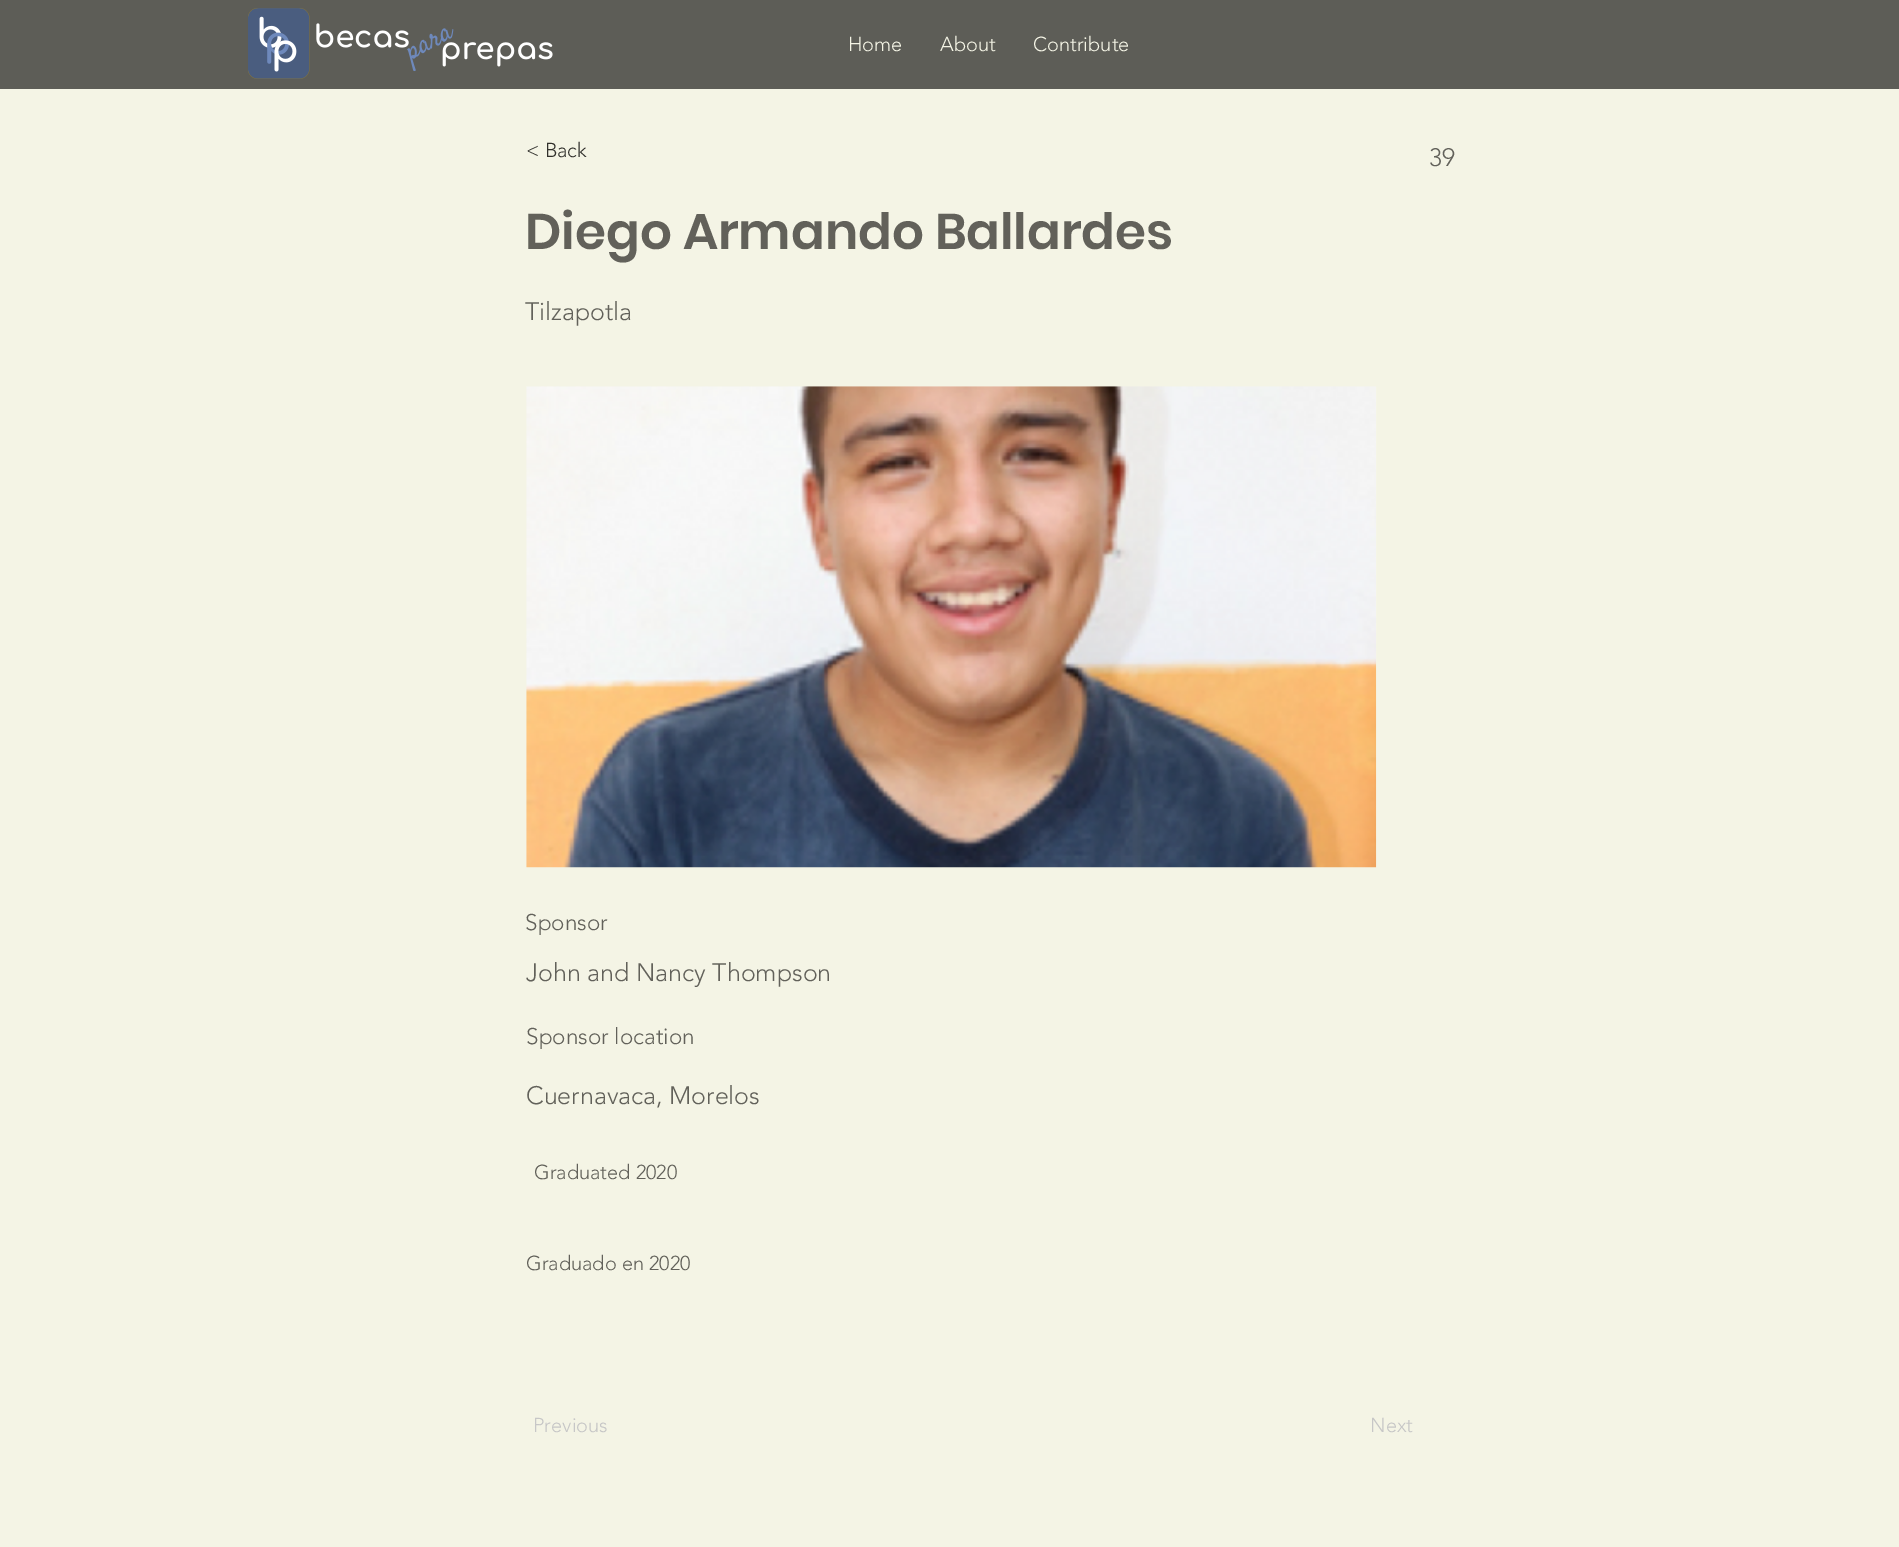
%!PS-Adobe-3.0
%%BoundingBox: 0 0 1899 1547
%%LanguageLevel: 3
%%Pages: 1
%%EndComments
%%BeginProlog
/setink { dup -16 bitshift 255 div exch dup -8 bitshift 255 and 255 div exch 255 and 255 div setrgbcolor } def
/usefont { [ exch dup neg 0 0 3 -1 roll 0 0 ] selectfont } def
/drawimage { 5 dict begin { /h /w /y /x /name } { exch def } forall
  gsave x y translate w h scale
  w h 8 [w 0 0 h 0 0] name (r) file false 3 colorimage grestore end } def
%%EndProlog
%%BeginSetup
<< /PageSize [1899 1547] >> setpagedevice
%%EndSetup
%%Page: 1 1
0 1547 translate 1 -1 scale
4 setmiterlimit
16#F4F4E5 setink
0 0 1899 1547 rectfill
16#5D5D57 setink
0 0 1899 89 rectfill
(img1.raw) 248 8 305 71 drawimage
/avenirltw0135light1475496-Light 20 usefont
16#F4F4E5 setink
[
    [(Home) 848 51]
    [(About) 940 51]
    [(Contribute) 1033 51]
] { aload pop moveto show } forall
16#31302C setink
526 157 moveto (< Back) show
/avenirltw0135light1475496-Light 25 usefont
16#62615A setink
1429 166 moveto (39) show
/Poppins-SemiBold 50 usefont
525 249 moveto (Diego Armando Ballardes) show
/avenirltw0135light1475496-Light 25 usefont
525 320 moveto (Tilzapotla) show
(img2.raw) 526 386 851 482 drawimage
/avenirltw0135light1475496-Light 22.5 usefont
525 930 moveto (Sponsor) show
/avenirltw0135light1475496-Light 25 usefont
526 981 moveto (John and Nancy Thompson) show
/avenirltw0135light1475496-Light 22.5 usefont
526 1044 moveto (Sponsor location) show
/avenirltw0135light1475496-Light 25 usefont
526 1104 moveto (Cuernavaca, Morelos) show
/avenirltw0135light1475496-Light 20 usefont
534 1179 moveto (Graduated 2020) show
526 1270 moveto (Graduado en 2020) show
16#C7C7C7 setink
533 1432 moveto (Previous) show
1370 1432 moveto (Next) show
showpage
%%EOF
